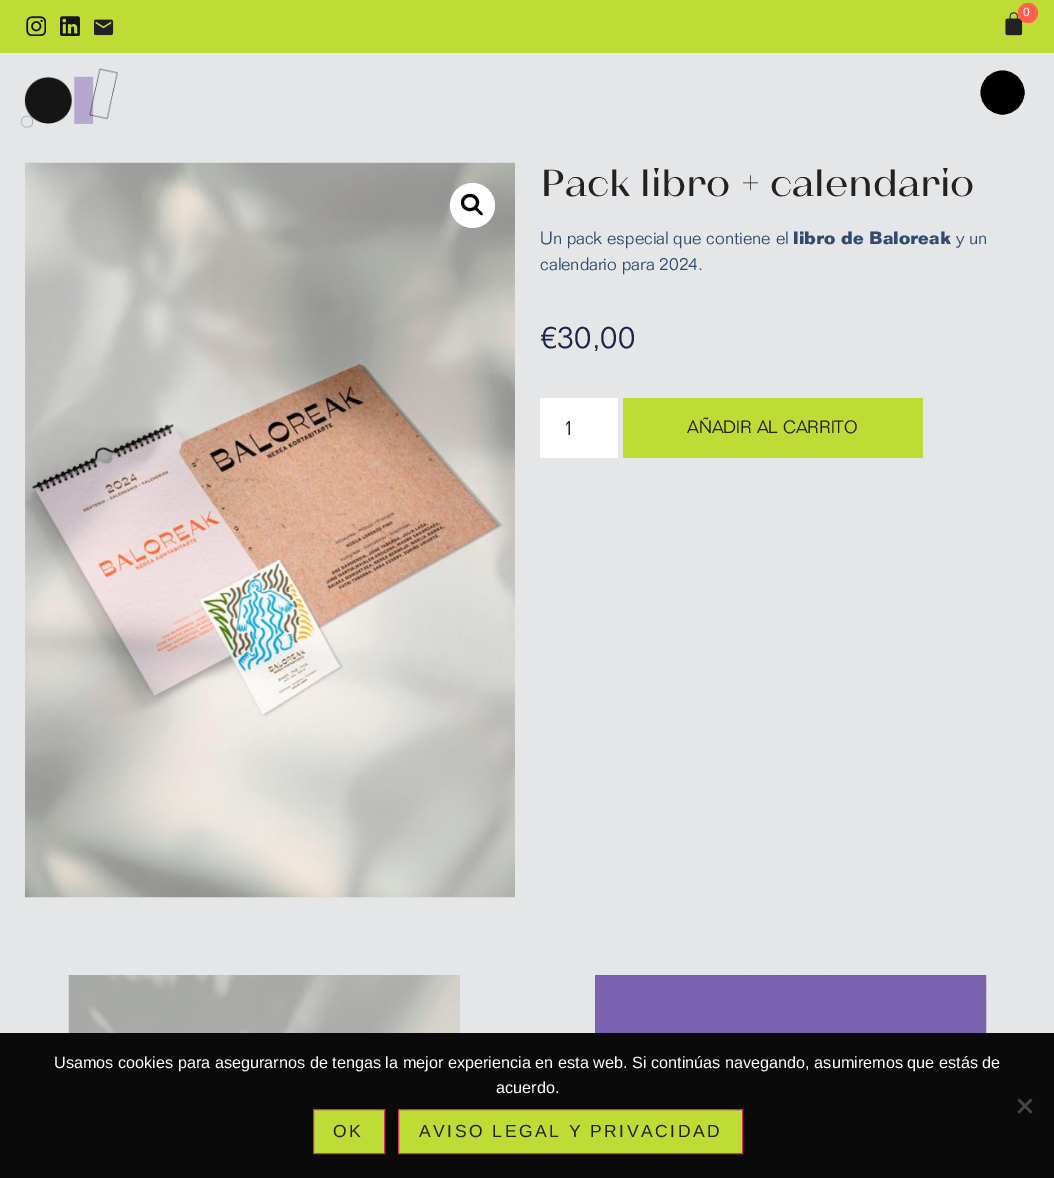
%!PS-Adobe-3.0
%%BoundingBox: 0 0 1054 1178
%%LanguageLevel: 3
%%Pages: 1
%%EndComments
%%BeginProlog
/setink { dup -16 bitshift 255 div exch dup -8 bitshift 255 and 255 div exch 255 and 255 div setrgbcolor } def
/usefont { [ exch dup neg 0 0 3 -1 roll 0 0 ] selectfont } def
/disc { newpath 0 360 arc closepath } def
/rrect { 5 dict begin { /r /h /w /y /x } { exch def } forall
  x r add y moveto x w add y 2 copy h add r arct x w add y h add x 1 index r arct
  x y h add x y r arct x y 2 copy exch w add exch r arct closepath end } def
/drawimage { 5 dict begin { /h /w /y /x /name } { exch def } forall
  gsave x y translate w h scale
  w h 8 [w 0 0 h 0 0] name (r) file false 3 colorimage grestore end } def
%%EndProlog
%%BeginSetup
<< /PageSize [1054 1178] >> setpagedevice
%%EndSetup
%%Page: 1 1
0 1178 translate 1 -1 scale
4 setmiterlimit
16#E5E6E8 setink
0 0 1054 1178 rectfill
16#BFDC36 setink
0 0 1054 53 rectfill
(img1.raw) 1005 12 18 24 drawimage
16#FF614C setink
1028 13 10 disc fill
/LiberationSans-Regular 12 usefont
16#FFFFFF setink
1023 16 moveto 2.5 0 (0) ashow
(img2.raw) 26 16 20 20 drawimage
(img3.raw) 60 16 20 20 drawimage
(img4.raw) 94 19 20 17 drawimage
(img5.raw) 21 68 97 60 drawimage
16#000000 setink
1002.5 92.5 21.5 disc gsave fill grestore
0.9 setlinewidth
stroke
(img6.raw) 25 162 490 736 drawimage
16#FFFFFF setink
472.5 205.5 22.5 disc fill
16#000000 setink
3 setlinewidth
462.5 195.5 15 14 7 rrect stroke
475 207.5 moveto 476.5 206.5 479 209.5 479.5 210.5 curveto 480.5 211 483.5 213.5 482.5 215 curveto 481 216 478.5 213 478 212 curveto 477 211.5 474 209 475 207.5 curveto closepath fill
/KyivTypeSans-Medium 37.5 usefont
16#232222 setink
540 196 moveto (Pack libro + calendario) show
/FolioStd-Light 17.5 usefont
16#324A6D setink
540 244 moveto (Un pack especial que contiene el) show
/FolioStd-Bold 17.5 usefont
793 244 moveto (libro de Baloreak) show
/FolioStd-Light 17.5 usefont
956 244 moveto (y un) show
540 270 moveto (calendario para 2024.) show
/FolioStd-Light 31 usefont
16#1C244B setink
540 348 moveto (€30,00) show
16#FFFFFF setink
540 398 78 60 rectfill
/FolioStd-Light 21 usefont
16#1C244B setink
563 435 moveto (1) show
16#BFDC36 setink
623 398 300 60 rectfill
/FolioStd-Light 17.5 usefont
16#232222 setink
687 433 moveto (AÑADIR AL CARRITO) show
(img7.raw) 68 975 392 58 drawimage
(img8.raw) 595 975 392 58 drawimage
16#0A0A0A setink
0 1033 1054 145 rectfill
/LiberationSans-Regular 16.25 usefont
16#FFFFFF setink
54 1068 moveto (Usamos cookies para asegurarnos de tengas la mejor experiencia en esta web. Si continúas navegando, asumiremos que estás de) show
496 1093 moveto (acuerdo.) show
16#454545 setink
1030.5 1098.5 moveto 1032.5 1100.5 lineto 1019.5 1113.5 lineto 1017.5 1112 lineto closepath fill
1017.5 1100.5 moveto 1019.5 1098.5 lineto 1032.5 1112 lineto 1030.5 1113.5 lineto closepath fill
16#BFDC36 setink
313.5 1109.5 moveto 384.5 1109.5 lineto 384.5 1153.5 lineto 313.5 1153.5 lineto closepath gsave fill grestore
16#CC3366 setink
1 setlinewidth
stroke
/LiberationSans-Regular 17.5 usefont
16#232222 setink
333 1137 moveto 2.5 0 (OK) ashow
16#BFDC36 setink
398.5 1109.5 moveto 742.5 1109.5 lineto 742.5 1153.5 lineto 398.5 1153.5 lineto closepath gsave fill grestore
16#CC3366 setink
stroke
16#232222 setink
419 1137 moveto 2.5 0 (AVISO LEGAL Y PRIVACIDAD) ashow
showpage
%%EOF
